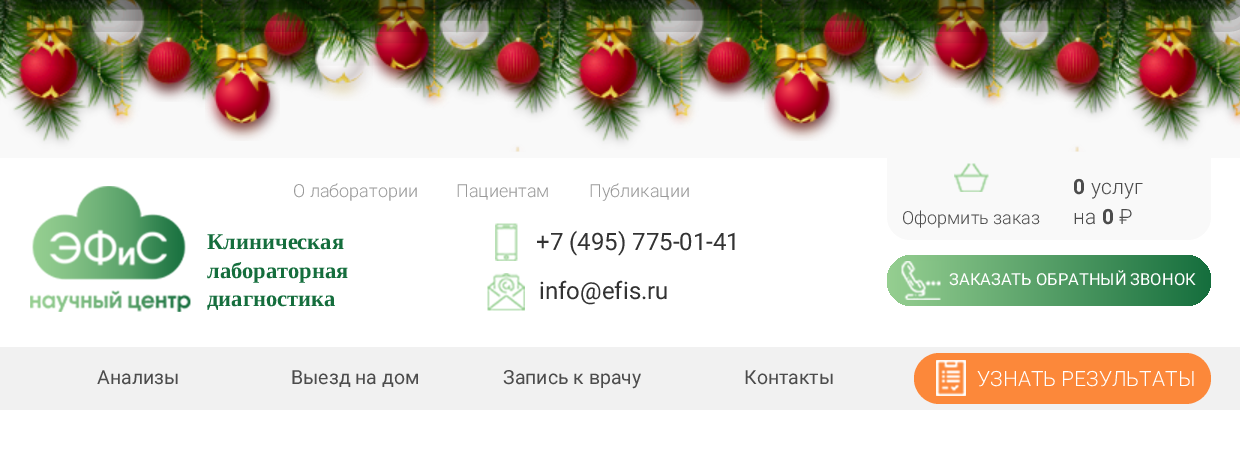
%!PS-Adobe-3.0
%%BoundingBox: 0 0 1240 452
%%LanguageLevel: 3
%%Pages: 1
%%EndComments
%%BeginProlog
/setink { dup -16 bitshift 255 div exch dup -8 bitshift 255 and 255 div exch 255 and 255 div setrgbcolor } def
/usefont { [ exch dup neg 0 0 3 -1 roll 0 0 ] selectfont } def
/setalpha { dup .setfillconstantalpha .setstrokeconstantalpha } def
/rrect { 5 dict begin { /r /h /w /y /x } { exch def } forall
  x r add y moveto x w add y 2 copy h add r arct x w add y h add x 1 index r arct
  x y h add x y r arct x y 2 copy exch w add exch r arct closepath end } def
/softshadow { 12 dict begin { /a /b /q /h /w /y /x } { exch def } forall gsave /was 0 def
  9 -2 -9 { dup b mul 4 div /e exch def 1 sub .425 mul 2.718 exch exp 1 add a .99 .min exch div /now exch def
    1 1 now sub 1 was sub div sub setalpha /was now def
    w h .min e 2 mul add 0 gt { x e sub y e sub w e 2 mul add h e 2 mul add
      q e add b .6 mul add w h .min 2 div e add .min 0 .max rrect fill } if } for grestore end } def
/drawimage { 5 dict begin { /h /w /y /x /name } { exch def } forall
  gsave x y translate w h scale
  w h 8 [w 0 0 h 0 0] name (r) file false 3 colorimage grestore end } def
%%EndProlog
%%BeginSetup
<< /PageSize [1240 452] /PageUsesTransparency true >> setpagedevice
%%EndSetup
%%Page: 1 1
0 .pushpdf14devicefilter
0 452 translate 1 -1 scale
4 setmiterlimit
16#FFFFFF setink
0 0 1240 452 rectfill
16#F9F9F9 setink
0 0 1240 158 rectfill
(img1.raw) 0 0 1240 152 drawimage
(img3.raw) 10 0 77 115 drawimage
(img2.raw) 0 0 38 99 drawimage
(img5.raw) 81 0 73 63 drawimage
(img4.raw) 37 0 90 33 drawimage
(img6.raw) 205 0 75 141 drawimage
(img7.raw) 254 0 62 73 drawimage
(img13.raw) 306 1 67 100 drawimage
(img8.raw) 265 0 43 39 drawimage
(img10.raw) 365 0 73 88 drawimage
(img9.raw) 307 0 76 68 drawimage
(img11.raw) 431 0 69 66 drawimage
(img12.raw) 138 6 61 96 drawimage
(img16.raw) 487 7 62 95 drawimage
(img14.raw) 434 0 117 35 drawimage
(img15.raw) 550 0 10 96 drawimage
(img18.raw) 569 0 78 115 drawimage
(img17.raw) 559 0 38 99 drawimage
(img20.raw) 640 0 74 63 drawimage
(img19.raw) 597 0 90 33 drawimage
(img21.raw) 764 0 76 141 drawimage
(img22.raw) 814 0 61 73 drawimage
(img28.raw) 866 1 67 100 drawimage
(img23.raw) 825 0 42 39 drawimage
(img25.raw) 925 0 73 88 drawimage
(img24.raw) 867 0 75 68 drawimage
(img26.raw) 990 0 69 66 drawimage
(img27.raw) 697 6 62 96 drawimage
(img31.raw) 1047 7 62 95 drawimage
(img29.raw) 993 0 117 35 drawimage
(img30.raw) 1110 0 9 96 drawimage
(img33.raw) 1129 0 77 115 drawimage
(img32.raw) 1119 0 38 99 drawimage
(img35.raw) 1200 0 40 63 drawimage
(img34.raw) 1156 0 84 33 drawimage
16#000000 setink
0 -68 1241 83 0 22.5 0.75 softshadow
(img36.raw) 30 186 161 126 drawimage
/LiberationSerif-Bold 22.5 usefont
16#156E3D setink
[
    [(Клиническая) 207 249]
    [(лабораторная) 207 278]
    [(диагностика) 207 306]
] { aload pop moveto show } forall
/Roboto-Light 18 usefont
16#999999 setink
[
    [(О лаборатории) 293 197]
    [(Пациентам) 456 197]
    [(Публикации) 589 197]
] { aload pop moveto show } forall
(img37.raw) 495 223 23 38 drawimage
/Roboto-Regular 24 usefont
16#333333 setink
536 250 moveto (+7 \(495\) 775-01-41) show
(img38.raw) 487 273 38 38 drawimage
539 299 moveto (info@efis.ru) show
16#F9F9F9 setink
887 158 moveto 1211 158 lineto 1211 217 lineto 1211 229.5 1200.5 240 1188 240 curveto 910 240 lineto 897.5 240 887 229.5 887 217 curveto closepath fill
(img39.raw) 954 163 35 29 drawimage
/Roboto-Light 18 usefont
16#4C4C4C setink
902 224 moveto (Оформить заказ) show
/Roboto-Bold 21 usefont
1073 194 moveto (0) show
/Roboto-Light 21 usefont
1091 194 moveto (услуг) show
1073 224 moveto (на) show
/Roboto-Bold 21 usefont
1102 224 moveto (0) show
/Roboto-Light 21 usefont
1119 224 moveto (₽) show
gsave 887 255 324 51 25.5 rrect clip newpath
<< /ShadingType 2 /ColorSpace /DeviceRGB /Coords [887 281 1211 281] /Extend [true true] /Function << /FunctionType 2 /Domain [0 1] /C0 [0.588 0.812 0.569] /C1 [0.082 0.431 0.239] /N 1 >> >> shfill grestore
(img40.raw) 901 261 40 39 drawimage
/Roboto-Regular 16.5 usefont
16#FFFFFF setink
949 285 moveto (ЗАКАЗАТЬ ОБРАТНЫЙ ЗВОНОК) show
16#F1F1F1 setink
0 347 1240 63 rectfill
/Roboto-Regular 19.5 usefont
16#4C4C4C setink
[
    [(Анализы) 97 384]
    [(Выезд на дом) 291 384]
    [(Запись к врачу) 503 384]
    [(Контакты) 744 384]
] { aload pop moveto show } forall
16#FC883A setink
914 353 297 51 25.5 rrect fill
(img41.raw) 936 360 30 36 drawimage
/Roboto-Light 21 usefont
16#FFFFFF setink
977 386 moveto (УЗНАТЬ РЕЗУЛЬТАТЫ) show
.poppdf14devicefilter showpage
%%EOF
